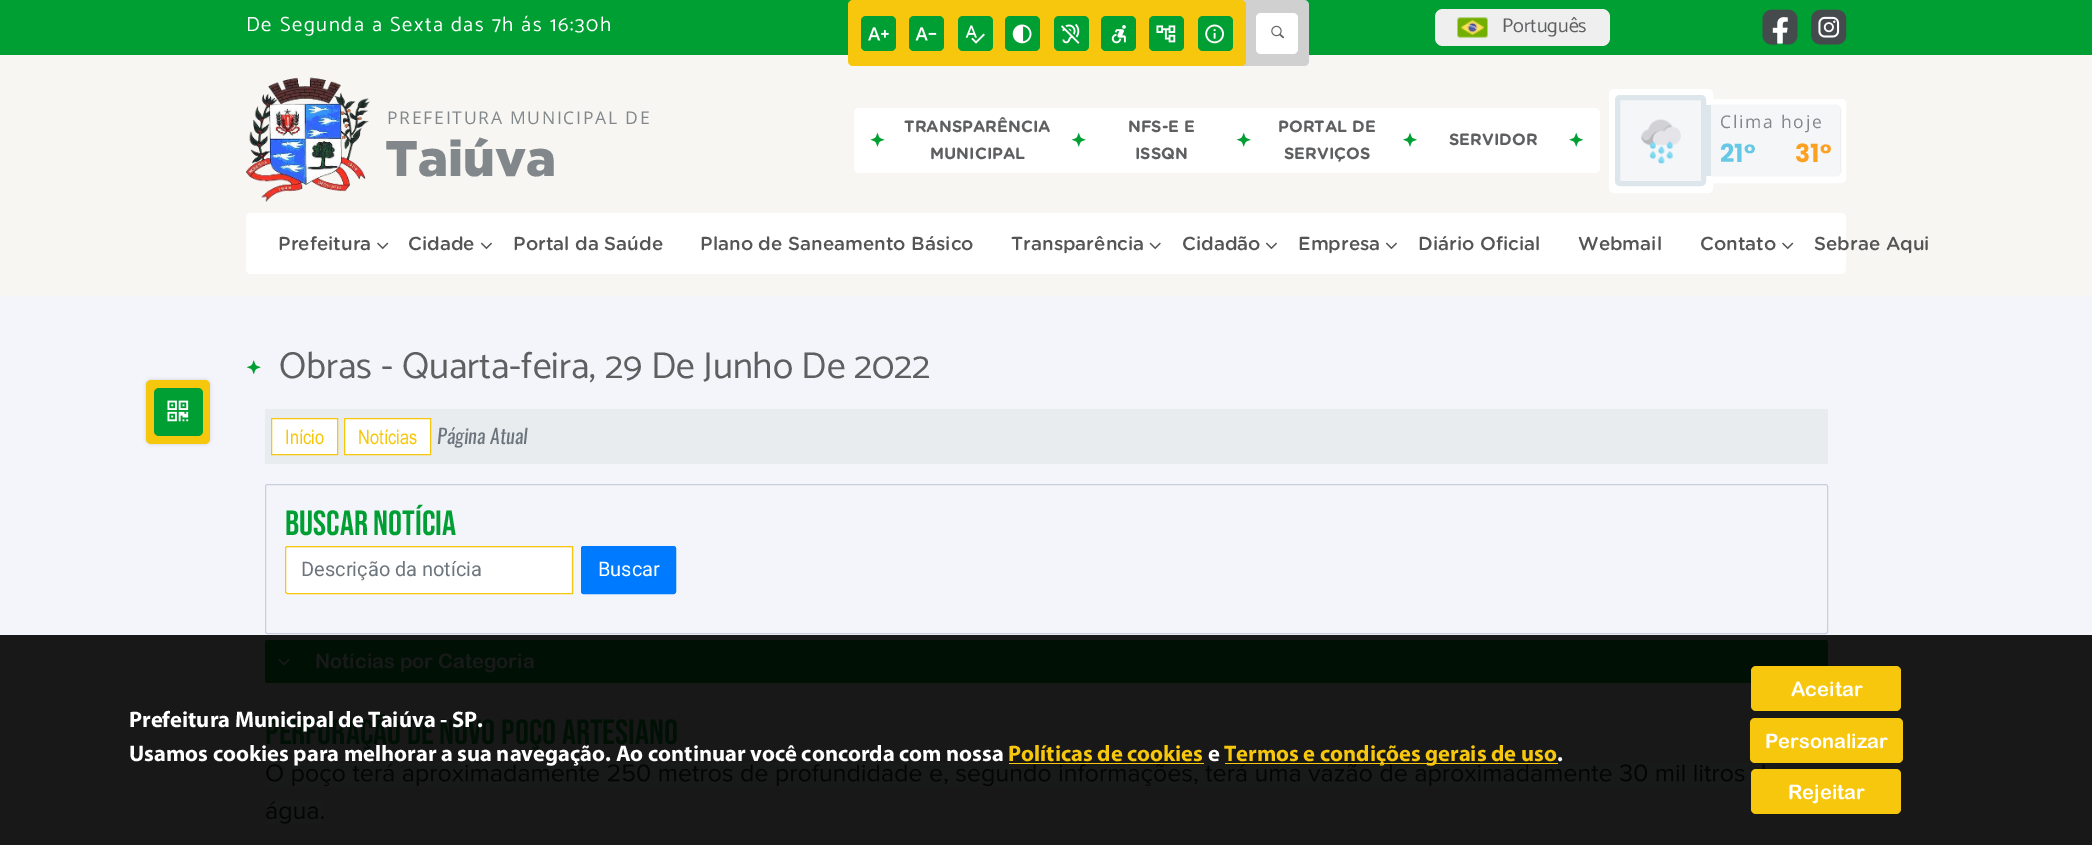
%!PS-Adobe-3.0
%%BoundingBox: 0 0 2092 845
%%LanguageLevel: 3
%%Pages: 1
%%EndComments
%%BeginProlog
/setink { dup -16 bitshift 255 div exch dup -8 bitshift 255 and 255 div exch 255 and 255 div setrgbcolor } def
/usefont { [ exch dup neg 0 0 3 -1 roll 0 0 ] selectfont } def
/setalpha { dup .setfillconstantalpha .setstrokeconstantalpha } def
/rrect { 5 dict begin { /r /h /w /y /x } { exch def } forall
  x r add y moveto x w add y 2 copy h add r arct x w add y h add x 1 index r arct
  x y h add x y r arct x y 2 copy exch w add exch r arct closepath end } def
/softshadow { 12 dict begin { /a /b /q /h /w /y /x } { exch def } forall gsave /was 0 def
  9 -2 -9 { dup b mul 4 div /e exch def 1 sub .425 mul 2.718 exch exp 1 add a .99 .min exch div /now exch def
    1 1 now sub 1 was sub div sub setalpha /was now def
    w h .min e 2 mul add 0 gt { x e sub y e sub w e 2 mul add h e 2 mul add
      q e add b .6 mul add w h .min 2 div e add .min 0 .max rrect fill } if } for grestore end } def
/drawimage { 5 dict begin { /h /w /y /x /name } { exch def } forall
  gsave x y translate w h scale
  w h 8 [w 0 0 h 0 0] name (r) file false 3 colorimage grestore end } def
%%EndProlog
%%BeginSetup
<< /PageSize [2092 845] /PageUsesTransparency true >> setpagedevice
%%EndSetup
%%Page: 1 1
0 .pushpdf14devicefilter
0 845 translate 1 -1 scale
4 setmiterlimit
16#F7F6F2 setink
0 0 2092 845 rectfill
16#009F33 setink
0 0 2092 55 rectfill
16#D0D0D0 setink
911 0 398 66 5 rrect fill
16#F6C70C setink
848 0 398 66 5 rrect fill
gsave
861 16 35 35 4 rrect clip newpath
16#009F33 setink
861 16 35 35 5 rrect fill
grestore
(img1.raw) 868 27 21 14 drawimage
gsave
909 16 35 35 4 rrect clip newpath
16#009F33 setink
909 16 35 35 5 rrect fill
grestore
(img2.raw) 915 27 22 14 drawimage
gsave
958 16 35 35 4 rrect clip newpath
16#009F33 setink
958 16 35 35 5 rrect fill
grestore
(img3.raw) 965 25 20 19 drawimage
gsave
1005 16 35 35 4 rrect clip newpath
16#009F33 setink
1005 16 35 35 5 rrect fill
grestore
(img4.raw) 1012 24 20 20 drawimage
gsave
1054 16 35 35 4 rrect clip newpath
16#009F33 setink
1054 16 35 35 5 rrect fill
grestore
(img5.raw) 1061 23 19 21 drawimage
gsave
1101 16 35 35 4 rrect clip newpath
16#009F33 setink
1101 16 35 35 5 rrect fill
grestore
(img6.raw) 1111 25 15 19 drawimage
gsave
1149 16 35 35 4 rrect clip newpath
16#009F33 setink
1149 16 35 35 5 rrect fill
grestore
(img7.raw) 1156 25 20 18 drawimage
gsave
1198 16 35 35 4 rrect clip newpath
16#009F33 setink
1198 16 35 35 5 rrect fill
grestore
(img8.raw) 1205 24 19 20 drawimage
/Catamaran-Regular 20.6 usefont
16#FFFFFF setink
246 31 moveto 1.6 0 (De Segunda a Sexta das 7h ás 16:30h) ashow
1256 13 42 41 5 rrect fill
(img9.raw) 1271 25 14 14 drawimage
16#EFEFEF setink
1435 9 175 37 8 rrect fill
(img10.raw) 1457 17 31 21 drawimage
/Catamaran-Regular 20 usefont
16#5E5F61 setink
1502 32 moveto (Português) show
gsave 1763 10 35 35 5 rrect clip newpath 1780 28 translate 25 25 scale
<< /ShadingType 3 /ColorSpace /DeviceRGB /Coords [0 0 0 0 0 1] /Extend [true true] /Function << /FunctionType 3 /Domain [0 1] /Functions [<< /FunctionType 2 /Domain [0 1] /C0 [1 1 1] /C1 [1 1 1] /N 1 >> << /FunctionType 2 /Domain [0 1] /C0 [1 1 1] /C1 [0 0.624 0.2] /N 1 >> << /FunctionType 2 /Domain [0 1] /C0 [0 0.624 0.2] /C1 [0 0.624 0.2] /N 1 >>] /Bounds [0.6 0.65] /Encode [0 1 0 1 0 1] >> >> shfill grestore
(img11.raw) 1762 9 36 36 drawimage
gsave 1811 10 35 35 5 rrect clip newpath 1829 28 translate 25 25 scale
<< /ShadingType 3 /ColorSpace /DeviceRGB /Coords [0 0 0 0 0 1] /Extend [true true] /Function << /FunctionType 3 /Domain [0 1] /Functions [<< /FunctionType 2 /Domain [0 1] /C0 [1 1 1] /C1 [1 1 1] /N 1 >> << /FunctionType 2 /Domain [0 1] /C0 [1 1 1] /C1 [0 0.624 0.2] /N 1 >> << /FunctionType 2 /Domain [0 1] /C0 [0 0.624 0.2] /C1 [0 0.624 0.2] /N 1 >>] /Bounds [0.6 0.65] /Encode [0 1 0 1 0 1] >> >> shfill grestore
(img12.raw) 1811 9 36 36 drawimage
(img13.raw) 246 77 124 125 drawimage
/OpenSans-Regular 17.5 usefont
16#81878B setink
387 124 moveto 1.75 0 (PREFEITURA MUNICIPAL DE) ashow
/Gotham-Black 50 usefont
385 176 moveto (Taiúva) show
16#FFFFFF setink
854 108 746 65 5 rrect fill
(img14.raw) 870 132 15 15 drawimage
/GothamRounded-Bold 16.25 usefont
16#5E5F61 setink
904 132 moveto (TRANSPARÊNCIA) show
930 159 moveto (MUNICIPAL) show
(img15.raw) 1071 132 15 15 drawimage
1128 132 moveto (NFS-E E) show
1135 159 moveto (ISSQN) show
(img15.raw) 1236 132 15 15 drawimage
1278 132 moveto (PORTAL DE) show
1284 159 moveto (SERVIÇOS) show
(img16.raw) 1403 132 14 15 drawimage
1449 145 moveto (SERVIDOR) show
(img17.raw) 1569 132 15 15 drawimage
16#FFFFFF setink
1612 92 98 98 2 rrect gsave fill grestore
6 setlinewidth
stroke
16#F4F6F8 setink
1617.5 97.5 86 86 2.5 rrect gsave fill grestore
16#DDE6EB setink
5 setlinewidth
stroke
(img18.raw) 1641 119 40 45 drawimage
16#FFFFFF setink
1716 102 moveto 1841 102 lineto 1842 102 1843 103 1843 104 curveto 1843 178 lineto 1843 179 1842 180 1841 180 curveto 1716 180 lineto closepath gsave fill grestore
6 setlinewidth
stroke
16#ECEEF0 setink
1708 105 133 71 5 0.5 1 softshadow
16#F4F6F8 setink
1706 105 moveto 1835 105 lineto 1838 105 1840 107 1840 110 curveto 1840 171 lineto 1840 174 1838 176 1835 176 curveto 1706 176 lineto closepath fill
16#DDE6EB setink
1706 105 5 71 rectfill
/OpenSans-Regular 17.5 usefont
16#81878B setink
1720 128 moveto 1.75 0 (Clima hoje) ashow
/Poppins-Bold 25 usefont
16#66C8E4 setink
1720 162 moveto (21°) show
16#FCA022 setink
1795 162 moveto (31°) show
16#FFFFFF setink
246 213 1600 61 5 rrect fill
/GothamRounded-Medium 18.75 usefont
16#555555 setink
278 250 moveto (Prefeitura) show
(img19.raw) 377 242 12 8 drawimage
408 250 moveto (Cidade) show
(img20.raw) 480 242 12 8 drawimage
[
    [(Portal da Saúde) 513 250]
    [(Plano de Saneamento Básico) 700 250]
    [(Transparência) 1011 250]
] { aload pop moveto show } forall
(img21.raw) 1149 242 12 8 drawimage
1182 250 moveto (Cidadão) show
(img20.raw) 1265 242 12 8 drawimage
1298 250 moveto (Empresa) show
(img20.raw) 1385 242 12 8 drawimage
[
    [(Diário Oficial) 1418 250]
    [(Webmail) 1578 250]
    [(Contato) 1700 250]
] { aload pop moveto show } forall
(img19.raw) 1782 242 12 8 drawimage
1814 250 moveto (Sebrae Aqui) show
16#F4F5FA setink
0 296 2092 339 rectfill
16#181819 setink
0 635 2092 210 rectfill
(img22.raw) 246 360 15 15 drawimage
/Catamaran-Regular 37.5 usefont
16#5E5F61 setink
279 378 moveto (Obras - Quarta-feira, 29 De Junho De 2022) show
16#E9ECEF setink
265 409 1563 55 rectfill
16#FFFFFF setink
271.5 418.5 moveto 337.5 418.5 lineto 337.5 454.5 lineto 271.5 454.5 lineto closepath gsave fill grestore
16#F6C70C setink
1 setlinewidth
stroke
/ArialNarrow-Regular 20 usefont
285 444 moveto (Início) show
16#FFFFFF setink
344.5 418.5 moveto 430.5 418.5 lineto 430.5 454.5 lineto 344.5 454.5 lineto closepath gsave fill grestore
16#F6C70C setink
stroke
358 444 moveto (Notícias) show
/Oswald-Italic 20 usefont
16#6C757D setink
437 444 moveto (Página Atual) show
16#C9CEE1 setink
265.5 484.5 1562 149 2 rrect stroke
/BebasNeue-Regular 35 usefont
16#009F33 setink
285 535 moveto (Buscar Notícia) show
16#FFFFFF setink
287 548 moveto 571 548 lineto 571 593 lineto 287 593 lineto 286.5 593 286 592.5 286 592 curveto 286 549 lineto 286 548.5 286.5 548 287 548 curveto closepath fill
16#F6C70C setink
287.5 546.5 moveto 572.5 546.5 lineto 572.5 593.5 lineto 287.5 593.5 lineto 286.5 593.5 285.5 592.5 285.5 591.5 curveto 285.5 548.5 lineto 285.5 547.5 286.5 546.5 287.5 546.5 curveto closepath stroke
/Roboto-Regular 20 usefont
16#6C757D setink
301 576 moveto (Descrição da notícia) show
16#007BFF setink
581.5 546.5 94 47 2 rrect gsave fill grestore
stroke
16#FFFFFF setink
598 576 moveto (Buscar) show
16#001005 setink
265 640 1563 43 2.5 rrect fill
(img23.raw) 278 658 12 8 drawimage
/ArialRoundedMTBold-Bold 20 usefont
16#191919 setink
315 668 moveto (Notícias por Categoria) show
/BebasNeue-Regular 35 usefont
16#001005 setink
265 744 moveto (PERFURAÇÃO DE NOVO POÇO ARTESIANO) show
(img24.raw) 266 763 1509 24 drawimage
(img25.raw) 266 801 58 23 drawimage
/Myriad-Bold 22.5 usefont
16#FFFFFF setink
129 727 moveto (Prefeitura Municipal de Taiúva - SP.) show
129 761 moveto (Usamos cookies para melhorar a sua navegação. Ao continuar você concorda com nossa) show
16#F6C70C setink
1008 761 moveto (Políticas de cookies) show
1009 763 195 1 rectfill
16#FFFFFF setink
1208 761 moveto (e) show
16#F6C70C setink
1225 763 333 1 rectfill
1224 761 moveto (Termos e condições gerais de uso) show
16#FFFFFF setink
1557 761 moveto (.) show
16#F6C70C setink
1751 666 150 45 5 rrect fill
/ArialRoundedMTBold-Bold 20 usefont
16#FFFFFF setink
1791 696 moveto (Aceitar) show
16#F6C70C setink
1750 718 153 45 5 rrect fill
16#FFFFFF setink
1765 748 moveto (Personalizar) show
16#F6C70C setink
1751 769 150 45 5 rrect fill
16#FFFFFF setink
1788 799 moveto (Rejeitar) show
16#CBD0D6 setink
146 380 64 64 5 2 1 softshadow
16#F6C70C setink
146 380 64 64 5 rrect fill
16#009F33 setink
154 388 49 48 5 rrect fill
(img26.raw) 167 400 22 22 drawimage
.poppdf14devicefilter showpage
%%EOF
